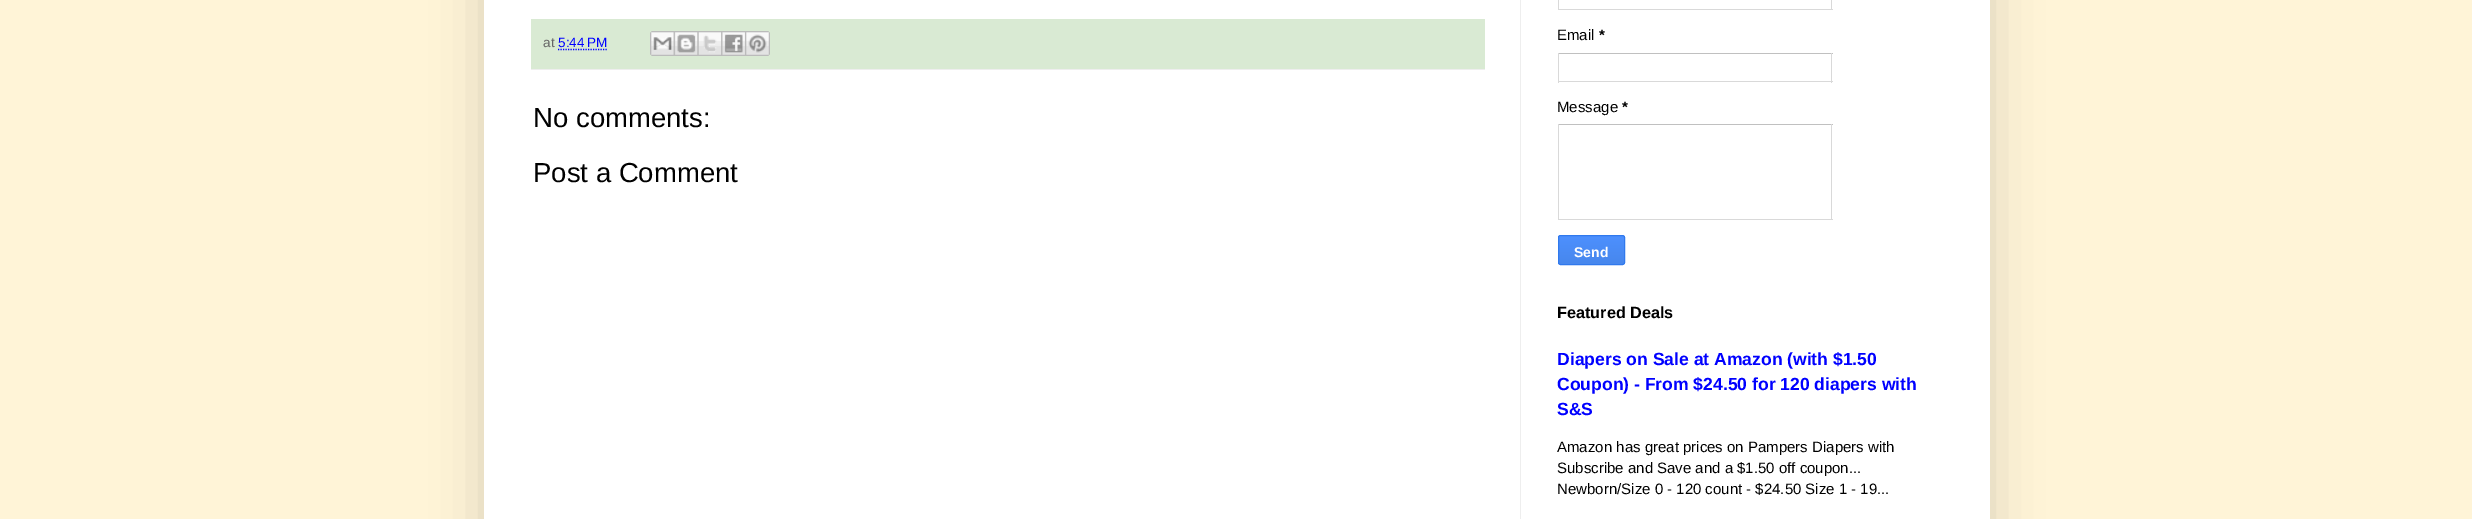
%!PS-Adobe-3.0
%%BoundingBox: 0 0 2472 519
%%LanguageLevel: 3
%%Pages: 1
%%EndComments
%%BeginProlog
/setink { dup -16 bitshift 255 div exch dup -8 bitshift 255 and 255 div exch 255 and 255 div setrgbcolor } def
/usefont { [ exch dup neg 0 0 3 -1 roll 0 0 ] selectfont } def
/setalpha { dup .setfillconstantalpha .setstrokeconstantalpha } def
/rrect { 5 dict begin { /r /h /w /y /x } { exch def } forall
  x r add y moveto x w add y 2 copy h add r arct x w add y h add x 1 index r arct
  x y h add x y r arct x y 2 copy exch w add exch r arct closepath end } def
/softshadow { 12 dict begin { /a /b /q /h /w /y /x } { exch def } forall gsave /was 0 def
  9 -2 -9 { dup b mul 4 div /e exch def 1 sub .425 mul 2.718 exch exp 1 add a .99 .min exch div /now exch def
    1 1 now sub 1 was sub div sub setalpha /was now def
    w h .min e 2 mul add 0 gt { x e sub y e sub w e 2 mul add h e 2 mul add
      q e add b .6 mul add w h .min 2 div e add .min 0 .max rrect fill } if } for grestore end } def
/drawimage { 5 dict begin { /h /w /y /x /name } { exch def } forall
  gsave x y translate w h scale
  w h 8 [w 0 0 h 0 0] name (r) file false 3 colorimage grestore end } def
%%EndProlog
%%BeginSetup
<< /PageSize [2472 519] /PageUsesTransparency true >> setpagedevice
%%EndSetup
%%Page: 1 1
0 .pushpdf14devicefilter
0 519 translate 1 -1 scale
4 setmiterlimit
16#FFF4D7 setink
0 0 2472 519 rectfill
16#000000 setink
484 -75 1506 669 0 25 0.15 softshadow
[
    [484 0 1506 519 16#FFFFFF]
    [1520 0 1 519 16#EEEEEE]
    [531 19 954 50 16#D9EAD3]
    [531 69 954 1 16#EEEEEE]
] { aload pop setink rectfill } forall
/LiberationSans-Regular 13.5 usefont
16#666666 setink
543 47 moveto (at) show
16#0000FF setink
558 47 moveto (5:44 PM) show
1.2 setlinewidth
[1.25 1.25] 0 setdash
558 49.5 moveto 607.5 49.5 lineto stroke
(img1.raw) 650 31 24 25 drawimage
(img2.raw) 673 31 25 25 drawimage
(img3.raw) 697 31 25 25 drawimage
(img4.raw) 721 31 24 25 drawimage
(img5.raw) 745 31 25 25 drawimage
/LiberationSans-Regular 27.5 usefont
16#000000 setink
533 127 moveto (No comments:) show
533 182 moveto (Post a Comment) show
[
    [1831 0 1 10 16#D9D9D9]
    [1558 9 275 1 16#D9D9D9]
    [1558 0 1 10 16#D9D9D9]
] { aload pop setink rectfill } forall
/LiberationSans-Regular 15 usefont
16#000000 setink
1557 40 moveto (Email) show
/LiberationSans-Bold 15 usefont
1599 40 moveto (*) show
[
    [1558 53 275 1 16#C0C0C0]
    [1831 53 1 30 16#D9D9D9]
    [1558 81 275 1 16#D9D9D9]
    [1558 53 1 30 16#D9D9D9]
] { aload pop setink rectfill } forall
/LiberationSans-Regular 15 usefont
16#000000 setink
1557 112 moveto (Message) show
/LiberationSans-Bold 15 usefont
1622 112 moveto (*) show
[
    [1558 124 275 1 16#C0C0C0]
    [1831 124 1 96 16#D9D9D9]
    [1558 219 275 1 16#D9D9D9]
    [1558 124 1 96 16#D9D9D9]
] { aload pop setink rectfill } forall
gsave
1558 235 67 30 2.5 rrect clip newpath
gsave 1558 236 moveto 1625 236 lineto 1625 264 lineto 1558 264 lineto closepath clip newpath
<< /ShadingType 2 /ColorSpace /DeviceRGB /Coords [1591 236 1591 264] /Extend [true true] /Function << /FunctionType 2 /Domain [0 1] /C0 [0.302 0.565 0.996] /C1 [0.278 0.529 0.929] /N 1 >> >> shfill grestore
grestore
16#3079ED setink
1 setlinewidth
[] 0 setdash
1558.5 235.5 66 29 2 rrect stroke
/LiberationSans-Bold 14 usefont
16#FFFFFF setink
1574 257 moveto (Send) show
/LiberationSans-Bold 16.25 usefont
16#000000 setink
1557 318 moveto (Featured Deals) show
/LiberationSans-Bold 17.55 usefont
16#0000FF setink
[
    [(Diapers on Sale at Amazon \(with $1.50) 1557 365]
    [(Coupon\) - From $24.50 for 120 diapers with) 1557 390]
    [(S&S) 1557 415]
] { aload pop moveto show } forall
/LiberationSans-Regular 15 usefont
16#000000 setink
[
    [(Amazon has great prices on Pampers Diapers with) 1557 452]
    [(Subscribe and Save and a $1.50 off coupon...) 1557 473]
    [(Newborn/Size 0 - 120 count - $24.50 Size 1 - 19...) 1557 494]
] { aload pop moveto show } forall
.poppdf14devicefilter showpage
%%EOF
